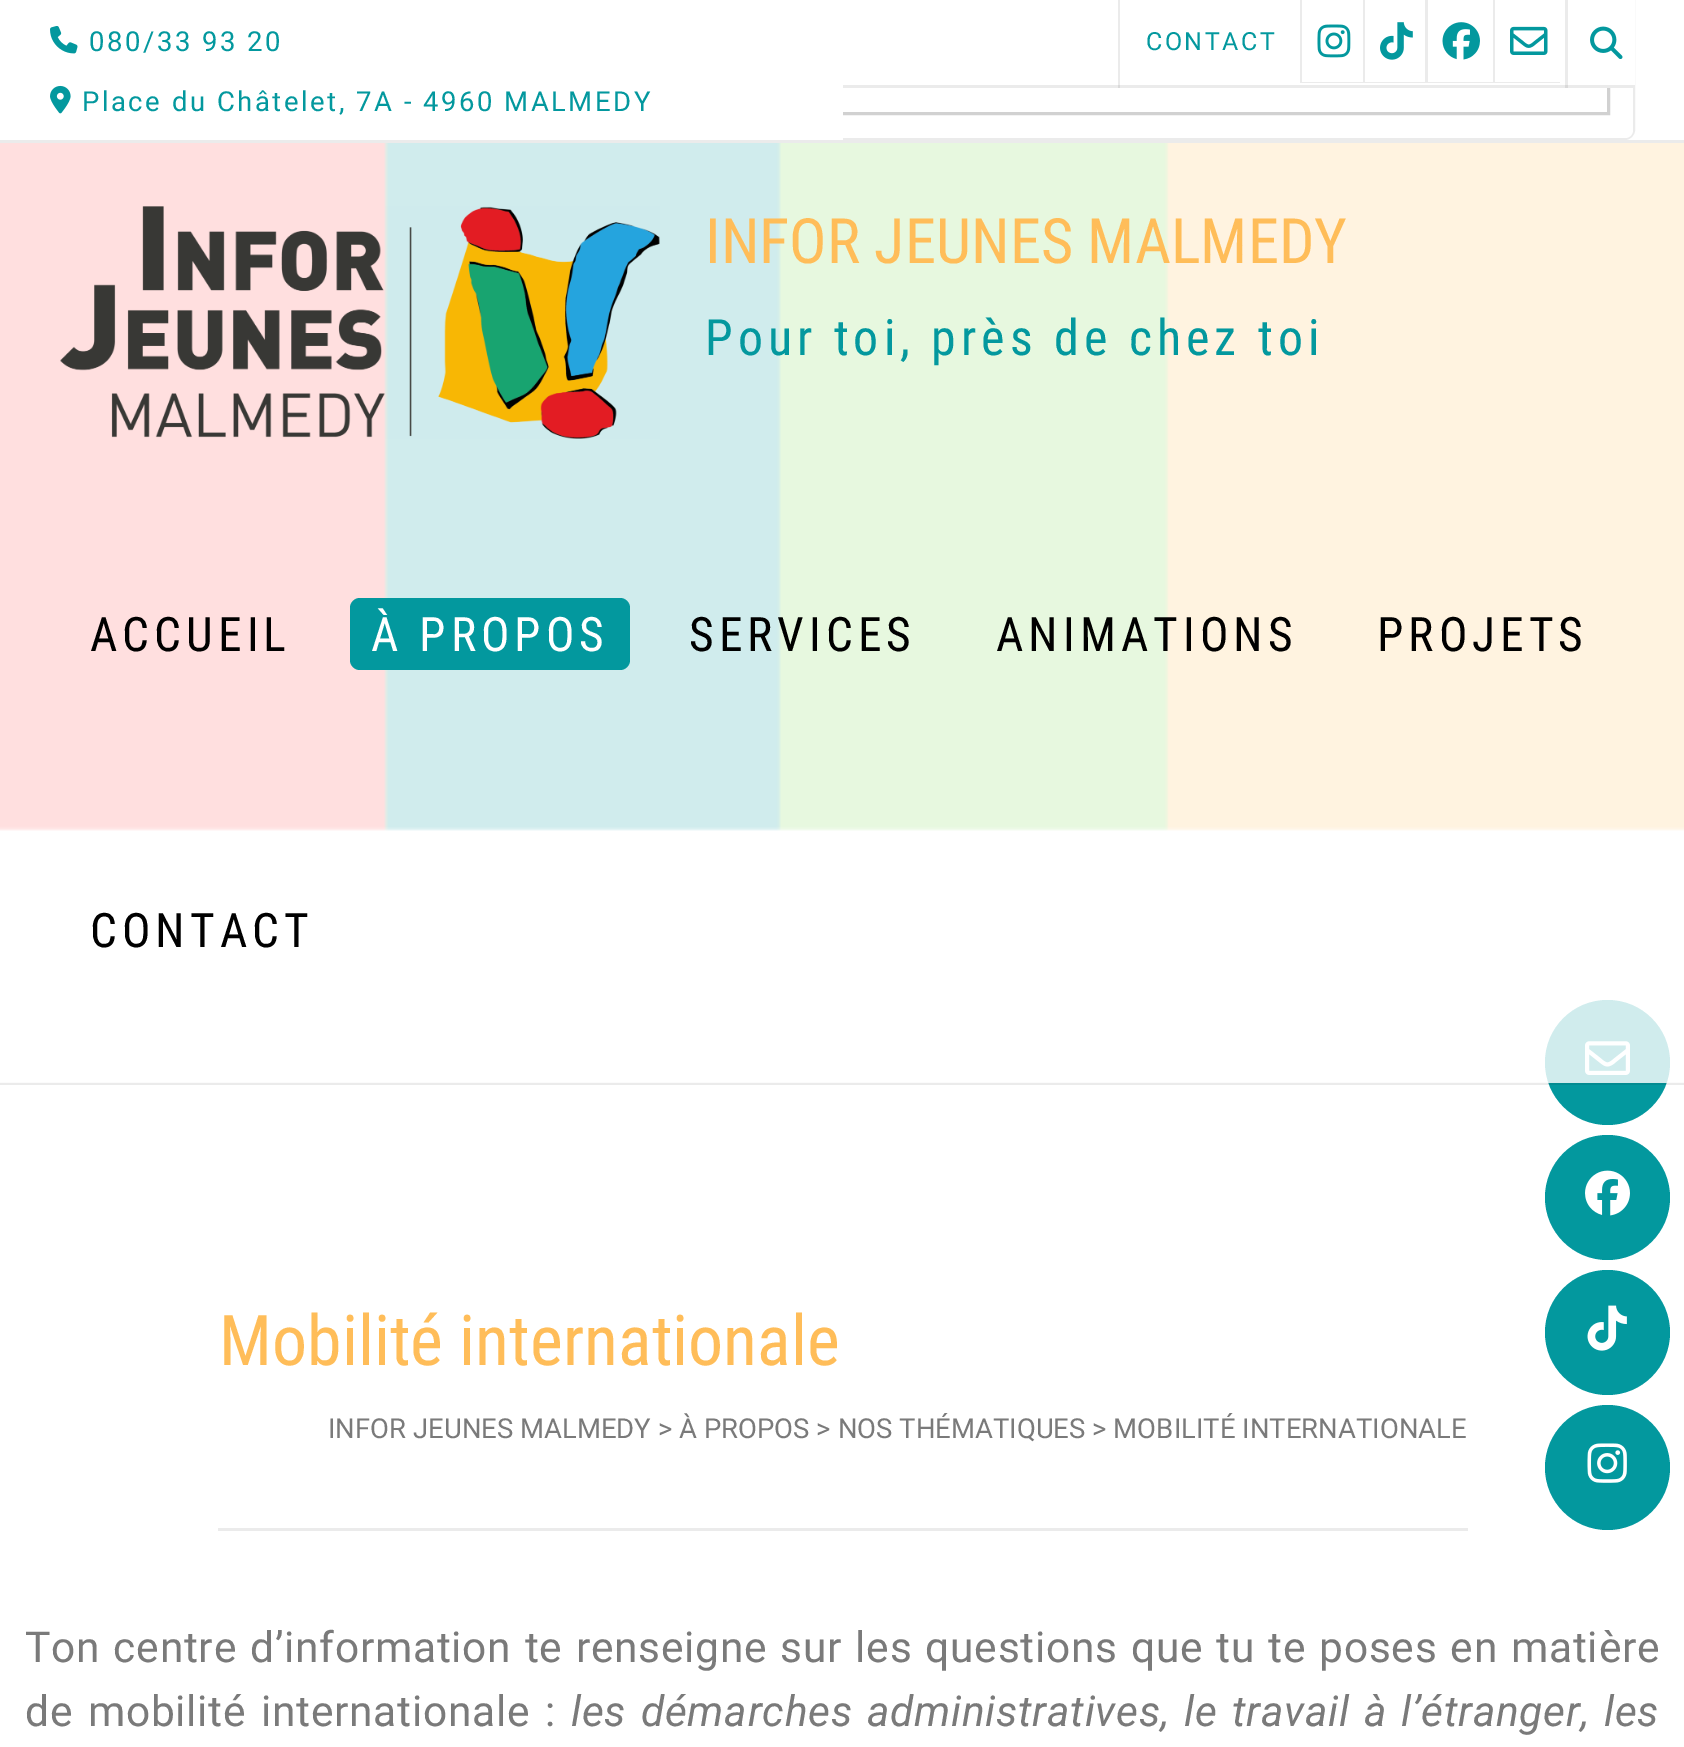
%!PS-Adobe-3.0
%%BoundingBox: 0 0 1684 1747
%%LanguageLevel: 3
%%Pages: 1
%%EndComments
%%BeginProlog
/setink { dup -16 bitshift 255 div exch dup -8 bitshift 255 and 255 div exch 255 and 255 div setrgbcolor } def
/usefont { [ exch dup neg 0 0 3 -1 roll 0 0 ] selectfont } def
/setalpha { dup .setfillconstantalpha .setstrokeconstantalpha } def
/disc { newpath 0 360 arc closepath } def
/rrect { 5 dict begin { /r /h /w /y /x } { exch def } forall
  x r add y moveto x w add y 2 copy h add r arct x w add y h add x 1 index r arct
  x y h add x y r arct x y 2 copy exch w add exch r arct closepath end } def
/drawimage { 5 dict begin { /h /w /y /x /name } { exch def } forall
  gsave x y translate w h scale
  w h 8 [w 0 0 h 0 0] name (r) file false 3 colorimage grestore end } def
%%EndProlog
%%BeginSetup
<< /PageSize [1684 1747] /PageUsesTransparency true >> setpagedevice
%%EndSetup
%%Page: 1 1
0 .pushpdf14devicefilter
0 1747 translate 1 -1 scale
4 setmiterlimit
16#FFFFFF setink
0 0 1684 1747 rectfill
(img1.raw) 0 143 1684 688 drawimage
16#EBEBEB setink
0 140 1684 3 rectfill
3 setlinewidth
811.5 -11.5 moveto 1633.5 -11.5 lineto 1633.5 130 lineto 1633.5 134.5 1629.5 138.5 1625 138.5 curveto 820 138.5 lineto 815.5 138.5 811.5 134.5 811.5 130 curveto closepath stroke
16#FFFFFF setink
813 0 moveto 1633 0 lineto 1633 130 lineto 1633 134.5 1629.5 138 1625 138 curveto 821 138 lineto 816.5 138 813 134.5 813 130 curveto closepath fill
16#D1D1D1 setink
836.5 34.5 772 79 rectstroke
16#FFFFFF setink
810 0 33 140 rectfill
(img2.raw) 50 26 28 28 drawimage
/Roboto-Regular 27.5 usefont
16#03989E setink
89 51 moveto 2.5 0 (080/33 93 20) ashow
(img3.raw) 50 85 21 29 drawimage
82 111 moveto 2.5 0 (Place du Châtelet, 7A - 4960 MALMEDY) ashow
16#FFFFFF setink
843 0 792 85 rectfill
16#EBEBEB setink
843 85 792 3 rectfill
0.08 setalpha
16#000000 setink
1118 0 moveto 1118 88 lineto 1300 88 lineto 1120 88 lineto 1120 0 lineto closepath fill
/Roboto-Regular 25 usefont
1 setalpha
16#03989E setink
1146 50 moveto 2.5 0 (CONTACT) ashow
16#EBEBEB setink
1300 0 moveto 1300 83 lineto 1363 83 lineto 1363 82 lineto 1302 82 lineto 1302 0 lineto closepath fill
(img4.raw) 1317 24 34 34 drawimage
1363 0 moveto 1363 83 lineto 1425 83 lineto 1425 82 lineto 1365 82 lineto 1365 0 lineto closepath fill
(img5.raw) 1380 22 33 38 drawimage
1425 0 moveto 1425 83 lineto 1493 83 lineto 1493 82 lineto 1428 82 lineto 1428 0 lineto closepath fill
(img6.raw) 1442 22 38 38 drawimage
1493 0 moveto 1493 83 lineto 1560 83 lineto 1560 82 lineto 1495 82 lineto 1495 0 lineto closepath fill
(img7.raw) 1510 26 38 29 drawimage
0.08 setalpha
16#000000 setink
1565 0 3 88 rectfill
1 setalpha
(img8.raw) 1590 26 33 33 drawimage
16#03989E setink
1607.5 1062.5 62.5 disc fill
0.08 setalpha
16#000000 setink
0 1082 1684 3 rectfill
1 setalpha
(img10.raw) 1585 1041 45 34 drawimage
0.81 setalpha
16#FFFFFF setink
0 143 1684 940 rectfill
1 setalpha
(img9.raw) 60 206 600 233 drawimage
/RobotoCondensed-Regular 62.5 usefont
16#FFBD59 setink
705 263 moveto (INFOR JEUNES MALMEDY) show
/RobotoCondensed-Regular 50 usefont
16#03989E setink
705 355 moveto 5 0 (Pour toi, près de chez toi) ashow
/RobotoCondensed-Regular 47.5 usefont
16#000000 setink
90 651 moveto 5 0 (ACCUEIL) ashow
16#03989E setink
350 598 280 72 10 rrect fill
16#FFFFFF setink
371 651 moveto 5 0 (À PROPOS) ashow
16#000000 setink
689 651 moveto 5 0 (SERVICES) ashow
996 651 moveto 5 0 (ANIMATIONS) ashow
1377 651 moveto 5 0 (PROJETS) ashow
90 947 moveto 5 0 (CONTACT) ashow
16#EBEBEB setink
218 1528 1250 3 rectfill
/RobotoCondensed-Regular 70 usefont
16#FFBD59 setink
219 1365 moveto (Mobilité internationale) show
/Roboto-Regular 27.5 usefont
16#7A7A7A setink
328 1438 moveto (INFOR JEUNES MALMEDY > À PROPOS > NOS THÉMATIQUES > MOBILITÉ INTERNATIONALE) show
/Roboto-Regular 42.5 usefont
25 1662 moveto 1.7 0 32 0.75 0 (Ton centre d’information te renseigne sur les questions que tu te poses en matière) awidthshow
25 1726 moveto 3.25 0 32 0.75 0 (de mobilité internationale :) awidthshow
/Roboto-Italic 42.5 usefont
571 1726 moveto 3.25 0 32 0.75 0 (les démarches administratives, le travail à l’étranger, les) awidthshow
16#03989E setink
1607.5 1197.5 62.5 disc fill
(img11.raw) 1585 1170 45 46 drawimage
1607.5 1332.5 62.5 disc fill
(img12.raw) 1587 1305 40 46 drawimage
1607.5 1467.5 62.5 disc fill
(img13.raw) 1587 1443 40 40 drawimage
.poppdf14devicefilter showpage
%%EOF
